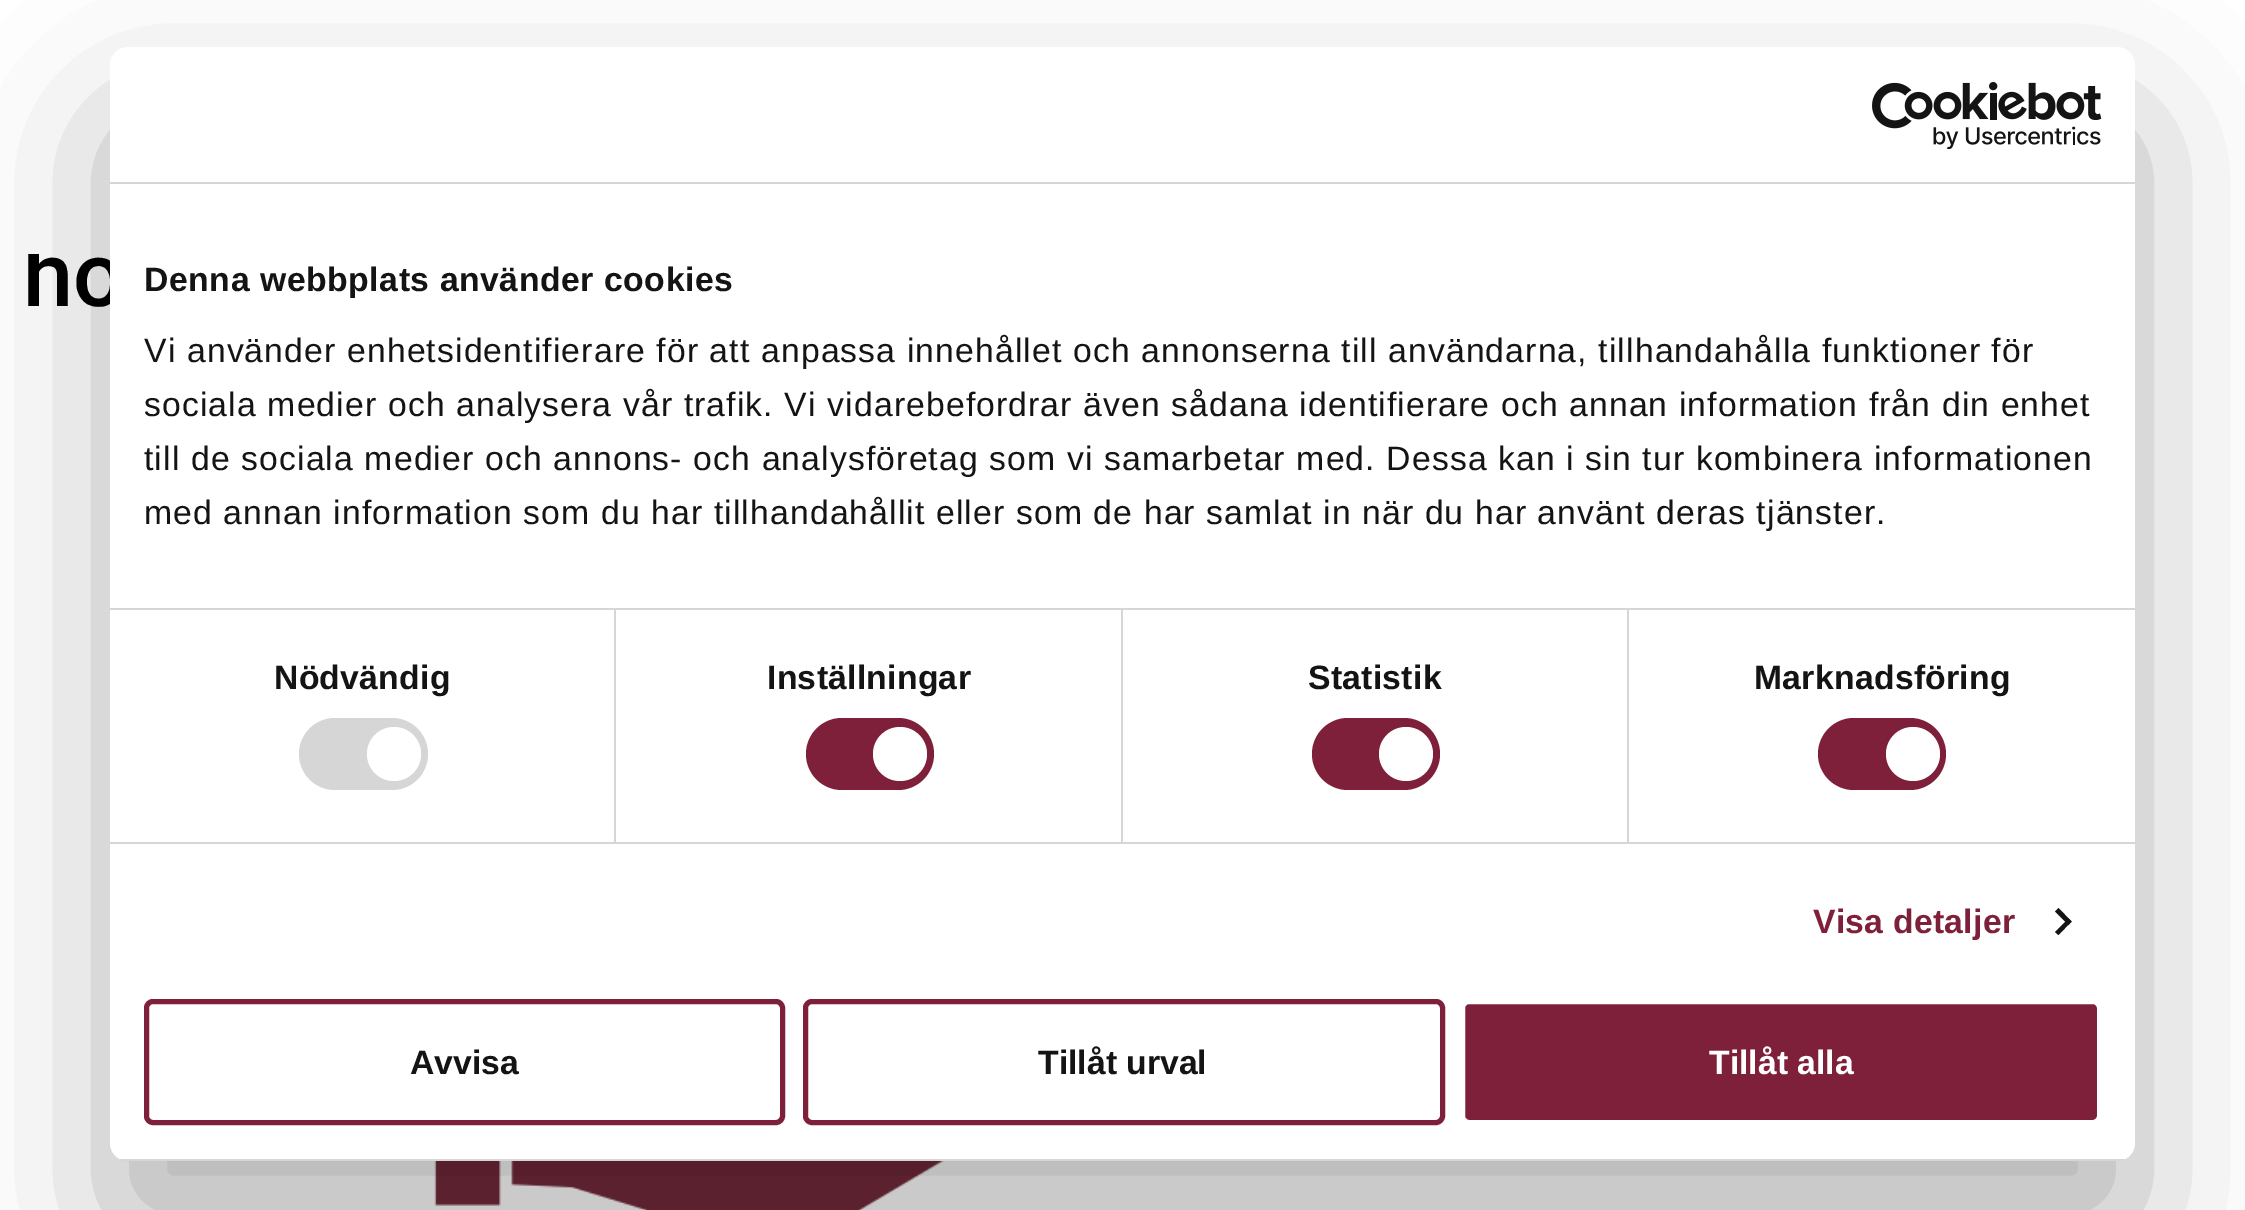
%!PS-Adobe-3.0
%%BoundingBox: 0 0 2245 1210
%%LanguageLevel: 3
%%Pages: 1
%%EndComments
%%BeginProlog
/setink { dup -16 bitshift 255 div exch dup -8 bitshift 255 and 255 div exch 255 and 255 div setrgbcolor } def
/usefont { [ exch dup neg 0 0 3 -1 roll 0 0 ] selectfont } def
/setalpha { dup .setfillconstantalpha .setstrokeconstantalpha } def
/disc { newpath 0 360 arc closepath } def
/rrect { 5 dict begin { /r /h /w /y /x } { exch def } forall
  x r add y moveto x w add y 2 copy h add r arct x w add y h add x 1 index r arct
  x y h add x y r arct x y 2 copy exch w add exch r arct closepath end } def
/softshadow { 12 dict begin { /a /b /q /h /w /y /x } { exch def } forall gsave /was 0 def
  9 -2 -9 { dup b mul 4 div /e exch def 1 sub .425 mul 2.718 exch exp 1 add a .99 .min exch div /now exch def
    1 1 now sub 1 was sub div sub setalpha /was now def
    w h .min e 2 mul add 0 gt { x e sub y e sub w e 2 mul add h e 2 mul add
      q e add b .6 mul add w h .min 2 div e add .min 0 .max rrect fill } if } for grestore end } def
/drawimage { 5 dict begin { /h /w /y /x /name } { exch def } forall
  gsave x y translate w h scale
  w h 8 [w 0 0 h 0 0] name (r) file false 3 colorimage grestore end } def
%%EndProlog
%%BeginSetup
<< /PageSize [2245 1210] /PageUsesTransparency true >> setpagedevice
%%EndSetup
%%Page: 1 1
0 .pushpdf14devicefilter
0 1210 translate 1 -1 scale
4 setmiterlimit
16#FFFFFF setink
0 0 2245 1210 rectfill
/Roboto-Medium 90 usefont
16#000000 setink
23 306 moveto (hö) show
(img1.raw) 434 1161 668 49 drawimage
16#FFFFFF setink
27 238 87 16 rectfill
16#000000 setink
110 119 2025 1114 18 76.5 0.3 softshadow
16#FFFFFF setink
110 47 2025 1114 18 rrect fill
16#D6D6D6 setink
110 182 2025 2 rectfill
(img2.raw) 1872 82 230 67 drawimage
110 608 2025 2 rectfill
/LiberationSans-Bold 33.75 usefont
16#141414 setink
144 291 moveto 0.55 0 (Denna webbplats använder cookies) ashow
/LiberationSans-Regular 33.75 usefont
144 362 moveto 1.12 0 (Vi använder enhetsidentifierare för att anpassa innehållet och annonserna till användarna, tillhandahålla funktioner för) ashow
144 416 moveto 1.12 0 (sociala medier och analysera vår trafik. Vi vidarebefordrar även sådana identifierare och annan information från din enhet) ashow
144 470 moveto 1.12 0 (till de sociala medier och annons- och analysföretag som vi samarbetar med. Dessa kan i sin tur kombinera informationen) ashow
144 524 moveto 1.12 0 (med annan information som du har tillhandahållit eller som de har samlat in när du har använt deras tjänster.) ashow
16#D6D6D6 setink
110 842 2025 2 rectfill
614 610 2 232 rectfill
/LiberationSans-Bold 33.75 usefont
16#141414 setink
274 689 moveto 0.25 0 (Nödvändig) ashow
16#D6D6D6 setink
299 718 129 72 36 rrect fill
16#FFFFFF setink
394 754 27 disc fill
16#D6D6D6 setink
1121 610 2 232 rectfill
16#141414 setink
767 689 moveto 0.25 0 (Inställningar) ashow
16#7E203A setink
806 718 128 72 36 rrect fill
16#FFFFFF setink
900 754 27 disc fill
16#D6D6D6 setink
1627 610 2 232 rectfill
16#141414 setink
1308 689 moveto 0.25 0 (Statistik) ashow
16#7E203A setink
1312 718 128 72 36 rrect fill
16#FFFFFF setink
1406 754 27 disc fill
16#141414 setink
1754 689 moveto 0.25 0 (Marknadsföring) ashow
16#7E203A setink
1818 718 128 72 36 rrect fill
16#FFFFFF setink
1913 754 27 disc fill
16#7E203A setink
1813 933 moveto 0.25 0 (Visa detaljer) ashow
16#141414 setink
2058.5 908 moveto 2071.5 921.5 lineto 2068.5 925 lineto 2055 911.5 lineto closepath fill
2068.5 918.5 moveto 2071.5 921.5 lineto 2058.5 935 lineto 2055 932 lineto closepath fill
gsave
110 47 2025 1114 18 rrect clip newpath
16#D6D6D6 setink
120 1159 2005 2 rectfill
grestore
16#7E203A setink
5 setlinewidth
146.5 1001.5 636 121 6.5 rrect stroke
16#141414 setink
410 1074 moveto (Avvisa) show
16#7E203A setink
805.5 1001.5 637 121 6.5 rrect stroke
16#141414 setink
1038 1074 moveto (Tillåt urval) show
16#7E203A setink
1462.5 1001.5 637 121 6.5 rrect gsave fill grestore
16#FFFFFF setink
stroke
1709 1074 moveto (Tillåt alla) show
.poppdf14devicefilter showpage
%%EOF
